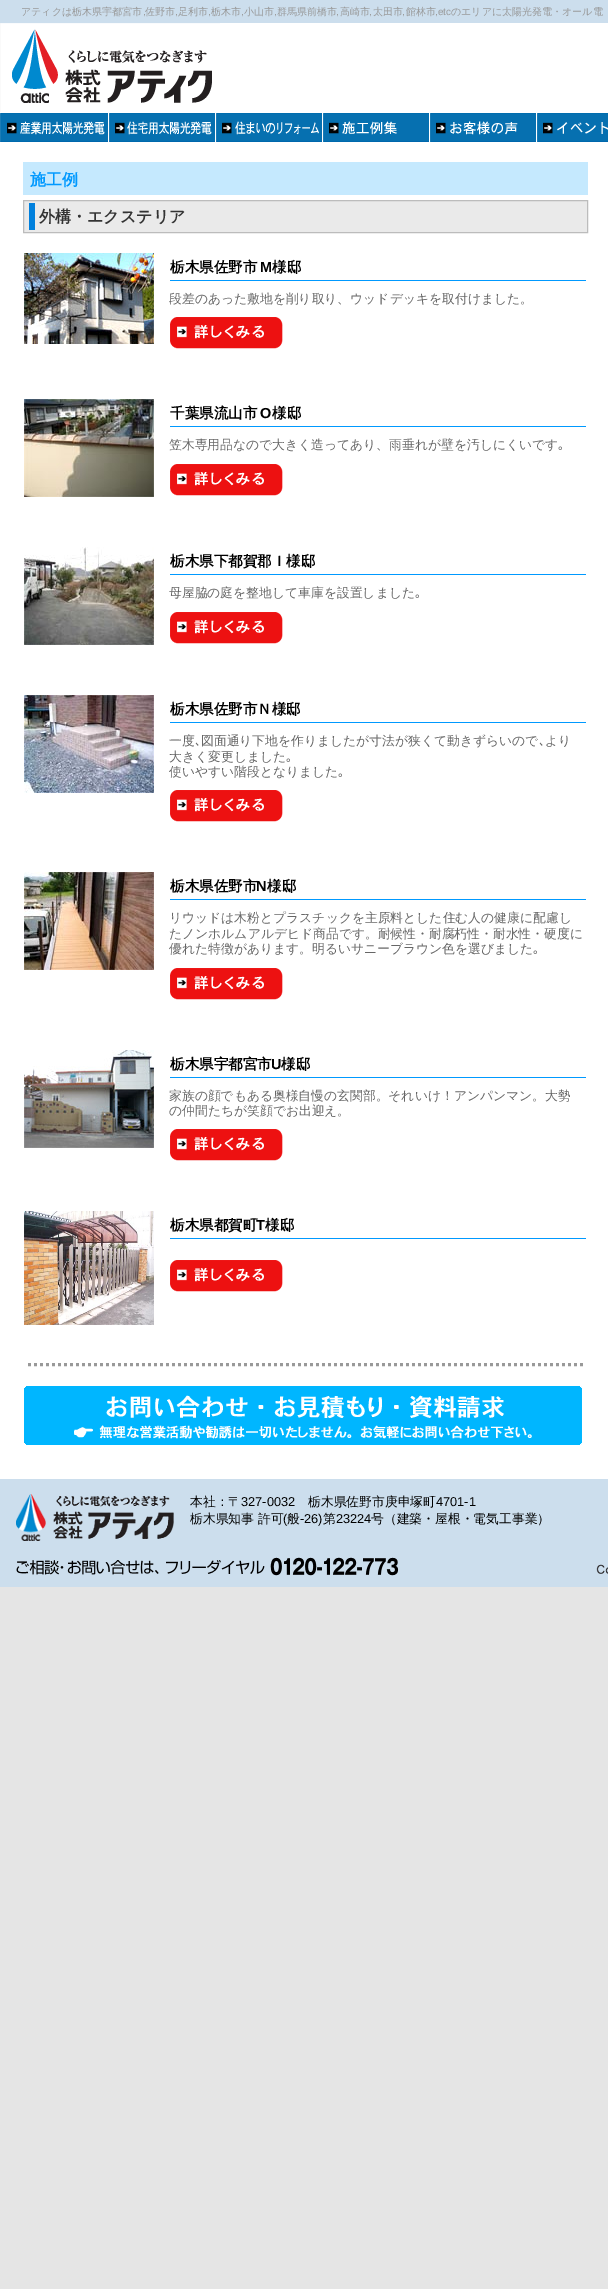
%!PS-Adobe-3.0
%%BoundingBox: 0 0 608 2289
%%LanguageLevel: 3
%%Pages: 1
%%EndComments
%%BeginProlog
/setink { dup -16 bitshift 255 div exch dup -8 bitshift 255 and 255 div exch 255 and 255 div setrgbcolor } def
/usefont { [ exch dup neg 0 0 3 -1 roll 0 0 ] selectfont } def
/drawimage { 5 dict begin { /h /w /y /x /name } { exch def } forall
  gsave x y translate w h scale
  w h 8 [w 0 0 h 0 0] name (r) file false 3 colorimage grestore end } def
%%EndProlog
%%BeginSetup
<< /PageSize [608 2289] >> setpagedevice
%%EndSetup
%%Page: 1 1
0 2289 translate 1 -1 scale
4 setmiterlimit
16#E5E5E5 setink
0 0 608 2289 rectfill
16#FFFFFF setink
0 23 608 1456 rectfill
16#CCDEED setink
0 0 608 23 rectfill
/WenQuanYiZenHei-Medium 10 usefont
16#999999 setink
21 15 moveto (アティクは栃木県宇都宮市 佐野市 足利市 栃木市 小山市 群馬県前橋市 高崎市 太田市 館林市) show
/LiberationSans-Regular 10 usefont
435 15 moveto (,etc) show
/WenQuanYiZenHei-Medium 10 usefont
451 15 moveto (のエリアに太陽光発電・オール電) show
/LiberationSans-Regular 10 usefont
[
    [(,) 143 15]
    [(,) 175 15]
    [(,) 208 15]
    [(,) 241 15]
    [(,) 274 15]
    [(,) 336 15]
    [(,) 369 15]
    [(,) 402 15]
] { aload pop moveto show } forall
(img1.raw) 0 23 220 89 drawimage
(img2.raw) 0 113 108 29 drawimage
(img3.raw) 108 113 107 29 drawimage
(img4.raw) 215 113 107 29 drawimage
(img5.raw) 322 113 107 29 drawimage
(img6.raw) 429 113 107 29 drawimage
(img7.raw) 536 113 72 29 drawimage
16#C5E9FE setink
23 162 565 33 rectfill
/WenQuanYiZenHei-Bold 16 usefont
16#0099FF setink
30 185 moveto (施工例) show
16#EAEAEA setink
23.5 200.5 moveto 587.5 200.5 lineto 587.5 232.5 lineto 23.5 232.5 lineto closepath gsave fill grestore
16#BCBCBC setink
stroke
16#0080DD setink
29 203 6 27 rectfill
16#333333 setink
39 222 moveto (外構・エクステリア) show
(img8.raw) 24 253 130 91 drawimage
16#0099FF setink
170 280 416 1 rectfill
/WenQuanYiZenHei-Bold 14.5 usefont
16#000000 setink
170 272 moveto (栃木県佐野市) show
/LiberationSans-Bold 14.5 usefont
260 272 moveto (M) show
/WenQuanYiZenHei-Bold 14.5 usefont
272 272 moveto (様邸) show
/WenQuanYiZenHei-Medium 12.8 usefont
16#666666 setink
169 303 moveto (段差のあった敷地を削り取り、ウッドデッキを取付けました。) show
(img9.raw) 170 317 113 32 drawimage
(img10.raw) 24 399 130 98 drawimage
16#0099FF setink
170 426 416 1 rectfill
/WenQuanYiZenHei-Bold 14.5 usefont
16#000000 setink
170 418 moveto (千葉県流山市) show
/LiberationSans-Bold 14.5 usefont
260 418 moveto (O) show
/WenQuanYiZenHei-Bold 14.5 usefont
272 418 moveto (様邸) show
/WenQuanYiZenHei-Medium 12.8 usefont
16#666666 setink
169 449 moveto (笠木専用品なので大きく造ってあり、雨垂れが壁を汚しにくいです) show
/IPAGothic-Regular 12.8 usefont
558 449 moveto (｡) show
(img9.raw) 170 464 113 32 drawimage
(img11.raw) 24 547 130 98 drawimage
16#0099FF setink
170 574 416 1 rectfill
/WenQuanYiZenHei-Bold 14.5 usefont
16#000000 setink
170 566 moveto (栃木県下都賀郡Ｉ様邸) show
/WenQuanYiZenHei-Medium 12.8 usefont
16#666666 setink
169 597 moveto (母屋脇の庭を整地して車庫を設置しました) show
/IPAGothic-Regular 12.8 usefont
415 597 moveto (｡) show
(img9.raw) 170 612 113 32 drawimage
(img12.raw) 24 695 130 98 drawimage
16#0099FF setink
170 722 416 1 rectfill
/WenQuanYiZenHei-Bold 14.5 usefont
16#000000 setink
170 714 moveto (栃木県佐野市Ｎ様邸) show
/WenQuanYiZenHei-Medium 12.8 usefont
16#666666 setink
169 745 moveto (一度) show
/IPAGothic-Regular 12.8 usefont
195 745 moveto (､) show
/WenQuanYiZenHei-Medium 12.8 usefont
201 745 moveto (図面通り下地を作りましたが寸法が狭くて動きずらいので) show
/IPAGothic-Regular 12.8 usefont
539 745 moveto (､) show
/WenQuanYiZenHei-Medium 12.8 usefont
545 745 moveto (より) show
169 761 moveto (大きく変更しました) show
/IPAGothic-Regular 12.8 usefont
286 761 moveto (｡) show
/WenQuanYiZenHei-Medium 12.8 usefont
169 776 moveto (使いやすい階段となりました) show
/IPAGothic-Regular 12.8 usefont
338 776 moveto (｡) show
(img9.raw) 170 790 113 32 drawimage
(img13.raw) 24 872 130 98 drawimage
16#0099FF setink
170 899 416 1 rectfill
/WenQuanYiZenHei-Bold 14.5 usefont
16#000000 setink
170 891 moveto (栃木県佐野市) show
/LiberationSans-Bold 14.5 usefont
256 891 moveto (N) show
/WenQuanYiZenHei-Bold 14.5 usefont
267 891 moveto (様邸) show
/WenQuanYiZenHei-Medium 12.8 usefont
16#666666 setink
[
    [(リウッドは木粉とプラスチックを主原料とした住む人の健康に配慮し) 169 922]
    [(たノンホルムアルデヒド商品です。耐候性・耐腐朽性・耐水性・硬度に) 169 938]
    [(優れた特徴があります。明るいサニーブラウン色を選びました) 169 953]
] { aload pop moveto show } forall
/IPAGothic-Regular 12.8 usefont
533 953 moveto (｡) show
(img9.raw) 170 968 113 32 drawimage
(img14.raw) 24 1050 130 98 drawimage
16#0099FF setink
170 1077 416 1 rectfill
/WenQuanYiZenHei-Bold 14.5 usefont
16#000000 setink
170 1069 moveto (栃木県宇都宮市) show
/LiberationSans-Bold 14.5 usefont
271 1069 moveto (U) show
/WenQuanYiZenHei-Bold 14.5 usefont
281 1069 moveto (様邸) show
/WenQuanYiZenHei-Medium 12.8 usefont
16#666666 setink
169 1100 moveto (家族の顔でもある奥様自慢の玄関部。それいけ！アンパンマン。大勢) show
169 1115 moveto (の仲間たちが笑顔でお出迎え。) show
(img9.raw) 170 1129 113 32 drawimage
(img15.raw) 24 1211 130 114 drawimage
16#0099FF setink
170 1238 416 1 rectfill
/WenQuanYiZenHei-Bold 14.5 usefont
16#000000 setink
170 1230 moveto (栃木県都賀町) show
/LiberationSans-Bold 14.5 usefont
256 1230 moveto (T) show
/WenQuanYiZenHei-Bold 14.5 usefont
265 1230 moveto (様邸) show
(img9.raw) 170 1260 113 32 drawimage
16#999999 setink
3 setlinewidth
[3 3] 0 setdash
28 1364.5 moveto 583 1364.5 lineto stroke
(img16.raw) 24 1386 558 59 drawimage
16#CCDEED setink
0 1479 608 108 rectfill
(img17.raw) 16 1494 158 47 drawimage
/WenQuanYiZenHei-Medium 12.8 usefont
16#000000 setink
190 1506 moveto (本社：〒) show
/LiberationSans-Regular 12.8 usefont
241 1506 moveto (327-0032) show
/WenQuanYiZenHei-Medium 12.8 usefont
308 1506 moveto (栃木県佐野市庚申塚町) show
/LiberationSans-Regular 12.8 usefont
436 1506 moveto (4701-1) show
/WenQuanYiZenHei-Medium 12.8 usefont
190 1523 moveto (栃木県知事 許可) show
/LiberationSans-Regular 12.8 usefont
283 1523 moveto (\() show
/WenQuanYiZenHei-Medium 12.8 usefont
287 1523 moveto (般) show
/LiberationSans-Regular 12.8 usefont
300 1523 moveto (-26\)) show
/WenQuanYiZenHei-Medium 12.8 usefont
323 1523 moveto (第) show
/LiberationSans-Regular 12.8 usefont
336 1523 moveto (23224) show
/WenQuanYiZenHei-Medium 12.8 usefont
371 1523 moveto (号（建築・屋根・電気工事業）) show
(img18.raw) 16 1557 383 19 drawimage
(img19.raw) 596 1564 12 10 drawimage
showpage
%%EOF
